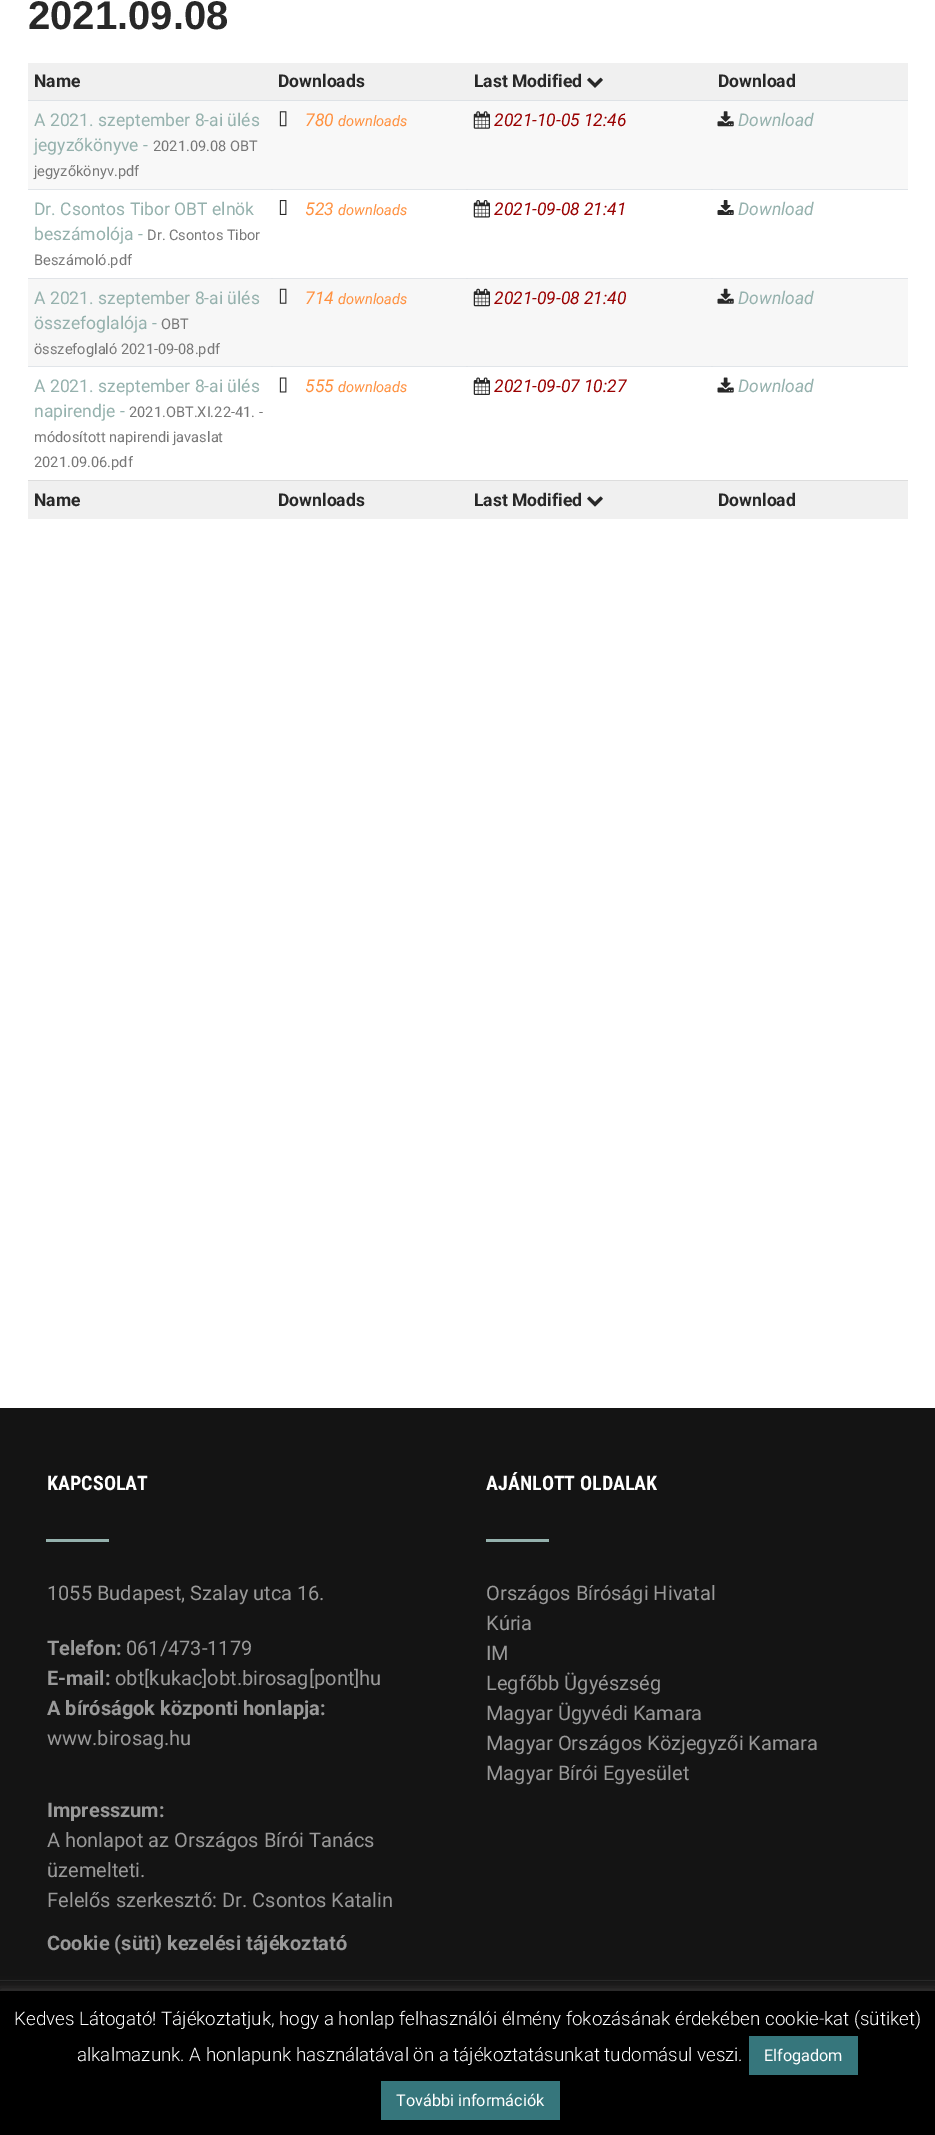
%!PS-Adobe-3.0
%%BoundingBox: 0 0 935 2135
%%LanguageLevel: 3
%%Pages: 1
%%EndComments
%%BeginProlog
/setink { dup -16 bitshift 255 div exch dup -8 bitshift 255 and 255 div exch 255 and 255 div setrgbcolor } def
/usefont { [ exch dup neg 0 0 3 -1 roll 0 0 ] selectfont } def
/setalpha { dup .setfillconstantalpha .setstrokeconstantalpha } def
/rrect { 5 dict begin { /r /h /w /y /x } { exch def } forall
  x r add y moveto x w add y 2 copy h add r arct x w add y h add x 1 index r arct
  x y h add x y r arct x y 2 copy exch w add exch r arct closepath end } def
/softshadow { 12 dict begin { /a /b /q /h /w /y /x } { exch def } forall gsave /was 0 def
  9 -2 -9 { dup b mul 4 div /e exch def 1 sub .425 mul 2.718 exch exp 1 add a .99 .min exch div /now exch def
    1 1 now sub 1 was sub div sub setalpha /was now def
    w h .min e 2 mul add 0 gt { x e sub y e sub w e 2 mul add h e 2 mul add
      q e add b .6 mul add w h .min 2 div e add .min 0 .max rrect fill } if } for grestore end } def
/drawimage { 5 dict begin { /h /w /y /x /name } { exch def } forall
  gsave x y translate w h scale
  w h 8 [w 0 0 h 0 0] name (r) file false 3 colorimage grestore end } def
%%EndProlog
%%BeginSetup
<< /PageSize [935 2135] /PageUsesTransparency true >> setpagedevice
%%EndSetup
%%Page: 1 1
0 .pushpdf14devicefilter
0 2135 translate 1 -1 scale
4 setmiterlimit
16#FFFFFF setink
0 0 935 2135 rectfill
[
    [28 189 880 1 16#E1E5E9]
    [271 189 2 1 16#DEE2E6]
    [466 189 2 1 16#DEE2E6]
    [28 366 880 1 16#E1E5E9]
    [271 366 2 1 16#DEE2E6]
    [466 366 2 1 16#DEE2E6]
] { aload pop setink rectfill } forall
/LiberationSans-Bold 40 usefont
16#282828 setink
28 29 moveto (2021.09.08) show
16#F0F0F0 setink
28 63 880 37 rectfill
/Roboto-Bold 17.5 usefont
16#282828 setink
[
    [(Name) 34 87]
    [(Downloads) 278 87]
    [(Last Modified) 474 87]
] { aload pop moveto show } forall
(img1.raw) 587 77 16 11 drawimage
16#DEE2E6 setink
28 100 880 1 rectfill
16#282828 setink
718 87 moveto (Download) show
16#F8F8F8 setink
28 101 880 88 rectfill
/Roboto-Regular 17.5 usefont
16#95B1AD setink
34 126 moveto (A 2021. szeptember 8-ai ülés) show
34 151 moveto (jegyzőkönyve -) show
/Roboto-Regular 14.6 usefont
16#777777 setink
153 151 moveto (2021.09.08 OBT) show
34 176 moveto (jegyzőkönyv.pdf) show
(img2.raw) 279 111 8 16 drawimage
/Roboto-Italic 17.5 usefont
16#FF9140 setink
305 126 moveto (780) show
/Roboto-Italic 14.6 usefont
338 126 moveto (downloads) show
(img3.raw) 473 111 17 18 drawimage
/Roboto-Italic 17.5 usefont
16#990000 setink
494 126 moveto (2021-10-05 12:46) show
(img4.raw) 717 111 17 16 drawimage
16#95B1AD setink
738 126 moveto (Download) show
/Roboto-Regular 17.5 usefont
34 215 moveto (Dr. Csontos Tibor OBT elnök) show
34 240 moveto (beszámolója -) show
/Roboto-Regular 14.6 usefont
16#777777 setink
147 240 moveto (Dr. Csontos Tibor) show
34 265 moveto (Beszámoló.pdf) show
(img5.raw) 279 200 8 15 drawimage
/Roboto-Italic 17.5 usefont
16#FF9140 setink
305 215 moveto (523) show
/Roboto-Italic 14.6 usefont
338 215 moveto (downloads) show
(img6.raw) 473 200 17 18 drawimage
/Roboto-Italic 17.5 usefont
16#990000 setink
494 215 moveto (2021-09-08 21:41) show
16#DEE2E6 setink
711 189 2 1 rectfill
(img7.raw) 717 200 17 15 drawimage
16#95B1AD setink
738 215 moveto (Download) show
[
    [28 279 880 87 16#F7F7F7]
    [28 278 880 1 16#E1E4E8]
    [271 278 2 1 16#DEE2E6]
    [466 278 2 1 16#DEE2E6]
] { aload pop setink rectfill } forall
/Roboto-Regular 17.5 usefont
16#95B1AD setink
34 304 moveto (A 2021. szeptember 8-ai ülés) show
34 329 moveto (összefoglalója -) show
/Roboto-Regular 14.6 usefont
16#777777 setink
161 329 moveto (OBT) show
34 354 moveto (összefoglaló 2021-09-08.pdf) show
(img8.raw) 279 288 8 16 drawimage
/Roboto-Italic 17.5 usefont
16#FF9140 setink
305 304 moveto (714) show
/Roboto-Italic 14.6 usefont
338 304 moveto (downloads) show
(img9.raw) 473 288 17 19 drawimage
/Roboto-Italic 17.5 usefont
16#990000 setink
494 304 moveto (2021-09-08 21:40) show
16#DEE2E6 setink
711 278 2 1 rectfill
(img10.raw) 717 288 17 16 drawimage
16#95B1AD setink
738 304 moveto (Download) show
/Roboto-Regular 17.5 usefont
34 392 moveto (A 2021. szeptember 8-ai ülés) show
34 417 moveto (napirendje -) show
/Roboto-Regular 14.6 usefont
16#777777 setink
[
    [(2021.OBT.XI.22-41. -) 129 417]
    [(módosított napirendi javaslat) 34 442]
    [(2021.09.06.pdf) 34 467]
] { aload pop moveto show } forall
(img11.raw) 279 377 8 16 drawimage
/Roboto-Italic 17.5 usefont
16#FF9140 setink
305 392 moveto (555) show
/Roboto-Italic 14.6 usefont
338 392 moveto (downloads) show
(img12.raw) 473 377 17 18 drawimage
/Roboto-Italic 17.5 usefont
16#990000 setink
494 392 moveto (2021-09-07 10:27) show
16#DEE2E6 setink
711 366 2 1 rectfill
(img13.raw) 717 377 17 16 drawimage
16#95B1AD setink
738 392 moveto (Download) show
16#F0F0F0 setink
28 481 880 38 rectfill
/Roboto-Bold 17.5 usefont
16#282828 setink
[
    [(Name) 34 506]
    [(Downloads) 278 506]
    [(Last Modified) 474 506]
] { aload pop moveto show } forall
(img14.raw) 587 496 16 11 drawimage
16#DDDDDD setink
28 480 880 1 rectfill
16#282828 setink
718 506 moveto (Download) show
16#141414 setink
0 1408 935 572 rectfill
/RobotoCondensed-Bold 20 usefont
16#FFFFFF setink
47 1490 moveto (KAPCSOLAT) show
16#95B1AD setink
46 1539 63 3 rectfill
/Roboto-Regular 20 usefont
16#999999 setink
47 1600 moveto (1055 Budapest, Szalay utca 16.) show
/Roboto-Bold 20 usefont
47 1655 moveto (Telefon:) show
/Roboto-Regular 20 usefont
126 1655 moveto (061/473-1179) show
/Roboto-Bold 20 usefont
47 1685 moveto (E-mail:) show
/Roboto-Regular 20 usefont
115 1685 moveto (obt[kukac]obt.birosag[pont]hu) show
/Roboto-Bold 20 usefont
47 1715 moveto (A bíróságok központi honlapja:) show
/Roboto-Regular 20 usefont
47 1745 moveto (www.birosag.hu) show
/Roboto-Bold 20 usefont
47 1817 moveto (Impresszum:) show
/Roboto-Regular 20 usefont
[
    [(A honlapot az Országos Bírói Tanács) 47 1847]
    [(üzemelteti.) 47 1877]
    [(Felelős szerkesztő: Dr. Csontos Katalin) 47 1907]
] { aload pop moveto show } forall
/Roboto-Bold 20 usefont
47 1950 moveto (Cookie \(süti\) kezelési tájékoztató) show
/RobotoCondensed-Bold 20 usefont
16#FFFFFF setink
486 1490 moveto (AJÁNLOTT OLDALAK) show
16#95B1AD setink
486 1539 63 3 rectfill
/Roboto-Regular 20 usefont
16#999999 setink
[
    [(Országos Bírósági Hivatal) 486 1600]
    [(Kúria) 486 1630]
    [(IM) 486 1660]
    [(Legfőbb Ügyészség) 486 1690]
    [(Magyar Ügyvédi Kamara) 486 1720]
    [(Magyar Országos Közjegyzői Kamara) 486 1750]
    [(Magyar Bírói Egyesület) 486 1780]
] { aload pop moveto show } forall
16#141414 setink
0 1981 935 10 rectfill
16#252525 setink
0 1980 935 1 rectfill
16#ACABAB setink
0 1990 935 144 0 6 0.3 softshadow
16#000000 setink
0 1991 935 144 rectfill
/Roboto-Light 18.75 usefont
16#FFFFFF setink
14 2025 moveto (Kedves Látogató! Tájékoztatjuk, hogy a honlap felhasználói élmény fokozásának érdekében cookie-kat \(sütiket\)) show
77 2061 moveto (alkalmazunk. A honlapunk használatával ön a tájékoztatásunkat tudomásul veszi.) show
16#36767C setink
749 2036 109 39 rectfill
/Roboto-Regular 16.25 usefont
16#FFFFFF setink
764 2061 moveto (Elfogadom) show
16#36767C setink
381 2081 179 39 rectfill
16#FFFFFF setink
396 2106 moveto (További információk) show
.poppdf14devicefilter showpage
%%EOF
